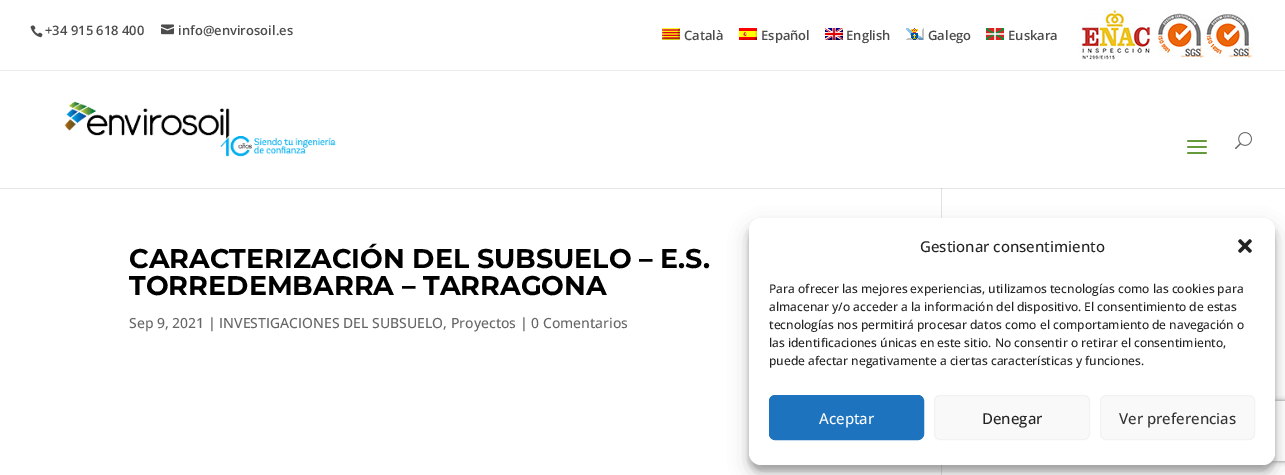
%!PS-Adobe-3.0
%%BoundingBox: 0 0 1285 475
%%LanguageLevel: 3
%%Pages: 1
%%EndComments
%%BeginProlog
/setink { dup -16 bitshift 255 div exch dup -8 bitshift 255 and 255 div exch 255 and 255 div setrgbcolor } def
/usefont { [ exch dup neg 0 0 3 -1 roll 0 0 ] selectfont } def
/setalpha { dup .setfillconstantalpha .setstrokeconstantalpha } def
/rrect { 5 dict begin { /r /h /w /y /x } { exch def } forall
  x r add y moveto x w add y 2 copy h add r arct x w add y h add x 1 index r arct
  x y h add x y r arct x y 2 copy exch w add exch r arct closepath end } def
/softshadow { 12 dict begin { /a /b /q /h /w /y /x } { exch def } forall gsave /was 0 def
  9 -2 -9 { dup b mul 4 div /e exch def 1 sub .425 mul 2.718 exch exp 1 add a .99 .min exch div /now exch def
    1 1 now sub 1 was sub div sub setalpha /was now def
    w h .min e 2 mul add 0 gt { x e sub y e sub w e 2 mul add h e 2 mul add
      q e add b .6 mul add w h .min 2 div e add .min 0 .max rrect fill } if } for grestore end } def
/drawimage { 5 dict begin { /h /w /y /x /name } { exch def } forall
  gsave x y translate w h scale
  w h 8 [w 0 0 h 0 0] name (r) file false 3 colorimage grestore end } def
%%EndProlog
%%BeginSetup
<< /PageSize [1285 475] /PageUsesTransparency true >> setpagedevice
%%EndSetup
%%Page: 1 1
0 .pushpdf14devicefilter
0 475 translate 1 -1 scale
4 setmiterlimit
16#FFFFFF setink
0 0 1285 475 rectfill
16#E6E6E6 setink
0 188 1285 1 rectfill
16#EDEDED setink
0 70 1285 1 rectfill
(img1.raw) 30 25 13 13 drawimage
/OpenSans-SemiBold 13 usefont
16#4C4C4C setink
45 35 moveto (+34 915 618 400) show
(img2.raw) 161 24 13 11 drawimage
178 35 moveto (info@envirosoil.es) show
(img3.raw) 662 28 18 12 drawimage
684 40 moveto (Català) show
(img4.raw) 739 28 18 12 drawimage
761 40 moveto (Español) show
(img5.raw) 825 28 18 12 drawimage
846 40 moveto (English) show
(img6.raw) 906 28 18 12 drawimage
928 40 moveto (Galego) show
(img7.raw) 986 28 18 12 drawimage
1008 40 moveto (Euskara) show
(img8.raw) 1078 10 176 50 drawimage
16#E2E2E2 setink
941 187 1 288 rectfill
16#FFFFFF setink
941 187 1 1 rectfill
(img9.raw) 64 101 272 56 drawimage
(img10.raw) 1187 140 20 14 drawimage
(img11.raw) 1235 132 17 18 drawimage
/Montserrat-Bold 27 usefont
16#000000 setink
129 268 moveto (CARACTERIZACIÓN DEL SUBSUELO – E.S.) show
129 295 moveto (TORREDEMBARRA – TARRAGONA) show
/OpenSans-Medium 14 usefont
16#666666 setink
129 328 moveto (Sep 9, 2021 | INVESTIGACIONES DEL SUBSUELO, Proyectos | 0 Comentarios) show
16#CBCBCB setink
941 188 1 1 rectfill
16#000000 setink
749 224 526 247 12 3 0.23 softshadow
749 228 526 247 12 10 0.19 softshadow
gsave
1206 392 moveto 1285 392 lineto 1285 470 lineto 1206 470 lineto closepath 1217 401 moveto 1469 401 lineto 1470 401 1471 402 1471 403 curveto 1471 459 lineto 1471 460 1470 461 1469 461 curveto 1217 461 lineto 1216 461 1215 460 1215 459 curveto 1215 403 lineto 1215 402 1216 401 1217 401 curveto closepath eoclip newpath
16#808080 setink
1215 401 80 60 2 2.5 1 softshadow
grestore
16#FFFFFF setink
749 218 526 247 12 rrect fill
/OpenSans-Medium 15 usefont
16#222222 setink
920 252 moveto (Gestionar consentimiento) show
(img12.raw) 1238 239 14 14 drawimage
/OpenSans-Medium 12 usefont
[
    [(Para ofrecer las mejores experiencias, utilizamos tecnologías como las cookies para) 769 293]
    [(almacenar y/o acceder a la información del dispositivo. El consentimiento de estas) 769 311]
    [(tecnologías nos permitirá procesar datos como el comportamiento de navegación o) 769 329]
    [(las identificaciones únicas en este sitio. No consentir o retirar el consentimiento,) 769 347]
    [(puede afectar negativamente a ciertas características y funciones.) 769 365]
] { aload pop moveto show } forall
16#1E73BE setink
769.5 395.5 154 44 5.5 rrect gsave fill grestore
stroke
/OpenSans-Medium 15 usefont
16#FFFFFF setink
819 424 moveto (Aceptar) show
16#F9F9F9 setink
934.5 395.5 155 44 5.5 rrect gsave fill grestore
16#F2F2F2 setink
stroke
16#222222 setink
982 424 moveto (Denegar) show
16#F9F9F9 setink
1100.5 395.5 154 44 5.5 rrect gsave fill grestore
16#F2F2F2 setink
stroke
16#333333 setink
1119 424 moveto (Ver preferencias) show
.poppdf14devicefilter showpage
%%EOF
